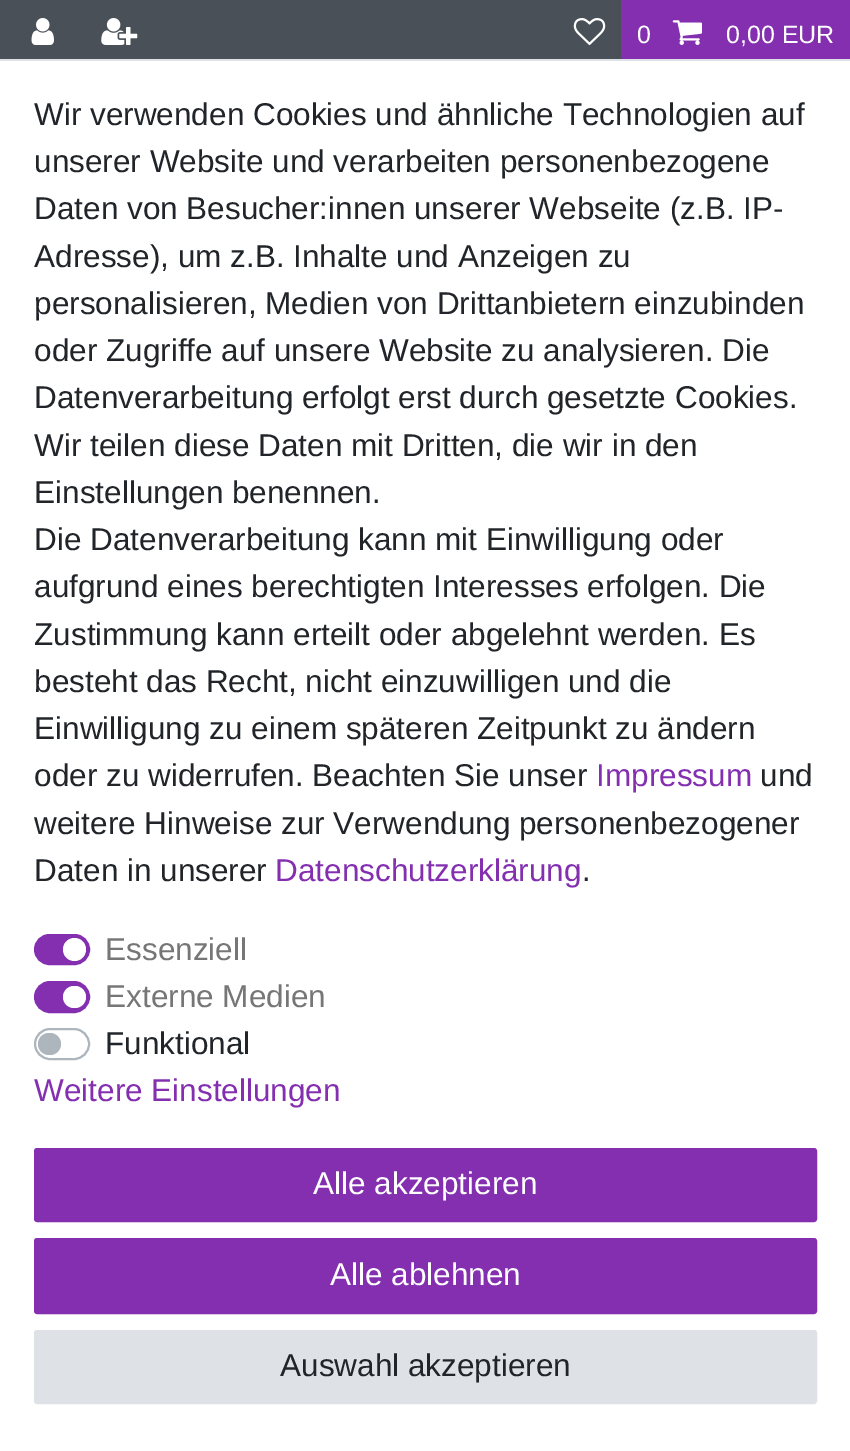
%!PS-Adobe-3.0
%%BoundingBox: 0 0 850 1451
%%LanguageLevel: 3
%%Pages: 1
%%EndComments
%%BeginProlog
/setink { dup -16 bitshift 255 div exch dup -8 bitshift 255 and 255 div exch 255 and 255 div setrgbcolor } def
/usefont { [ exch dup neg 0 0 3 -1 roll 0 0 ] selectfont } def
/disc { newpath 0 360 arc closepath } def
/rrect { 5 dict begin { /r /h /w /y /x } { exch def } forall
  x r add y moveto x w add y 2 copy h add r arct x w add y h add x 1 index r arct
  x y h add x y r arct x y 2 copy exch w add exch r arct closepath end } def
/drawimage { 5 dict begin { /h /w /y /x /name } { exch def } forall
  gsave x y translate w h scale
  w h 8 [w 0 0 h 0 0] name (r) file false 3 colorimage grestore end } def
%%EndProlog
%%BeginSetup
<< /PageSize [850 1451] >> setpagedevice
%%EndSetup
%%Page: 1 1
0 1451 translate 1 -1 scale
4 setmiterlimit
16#495057 setink
0 0 850 1451 rectfill
(img1.raw) 31 18 23 27 drawimage
(img2.raw) 101 18 37 27 drawimage
(img3.raw) 573 18 33 27 drawimage
16#832FB0 setink
621 0 229 59 rectfill
/LiberationSans-Regular 25 usefont
16#FFFFFF setink
637 43 moveto (0) show
(img4.raw) 672 20 30 25 drawimage
726 43 moveto (0,00 EUR) show
0 61 850 1390 rectfill
16#DEE2E6 setink
0 59 850 2 rectfill
/LiberationSans-Regular 31.5 usefont
16#212529 setink
[
    [(Wir verwenden Cookies und ähnliche Technologien auf) 34 125]
    [(unserer Website und verarbeiten personenbezogene) 34 172]
    [(Daten von Besucher:innen unserer Webseite \(z.B. IP-) 34 219]
    [(Adresse\), um z.B. Inhalte und Anzeigen zu) 34 267]
    [(personalisieren, Medien von Drittanbietern einzubinden) 34 314]
    [(oder Zugriffe auf unsere Website zu analysieren. Die) 34 361]
    [(Datenverarbeitung erfolgt erst durch gesetzte Cookies.) 34 408]
    [(Wir teilen diese Daten mit Dritten, die wir in den) 34 456]
    [(Einstellungen benennen.) 34 503]
    [(Die Datenverarbeitung kann mit Einwilligung oder) 34 550]
    [(aufgrund eines berechtigten Interesses erfolgen. Die) 34 597]
    [(Zustimmung kann erteilt oder abgelehnt werden. Es) 34 645]
    [(besteht das Recht, nicht einzuwilligen und die) 34 692]
    [(Einwilligung zu einem späteren Zeitpunkt zu ändern) 34 739]
    [(oder zu widerrufen. Beachten Sie unser) 34 786]
] { aload pop moveto show } forall
16#832FB0 setink
596 786 moveto (Impressum) show
16#212529 setink
[
    [(und) 760 786]
    [(weitere Hinweise zur Verwendung personenbezogener) 34 834]
    [(Daten in unserer) 34 881]
] { aload pop moveto show } forall
16#832FB0 setink
275 881 moveto (Datenschutzerklärung) show
16#212529 setink
582 881 moveto (.) show
16#832FB0 setink
35 935 54 29 14.5 rrect gsave fill grestore
2 setlinewidth
stroke
16#767676 setink
105 960 moveto (Essenziell) show
16#FFFFFF setink
74.5 949.5 11.5 disc fill
16#832FB0 setink
35 982 54 30 15 rrect gsave fill grestore
stroke
16#767676 setink
105 1007 moveto (Externe Medien) show
16#FFFFFF setink
63 986 23 22 11 rrect fill
16#ADB5BD setink
35 1029 54 30 15 rrect stroke
16#212529 setink
105 1054 moveto (Funktional) show
16#ADB5BD setink
38 1033 23 22 11 rrect fill
16#832FB0 setink
34 1101 moveto (Weitere Einstellungen) show
35 1149 781 72 2 rrect gsave fill grestore
stroke
16#FFFFFF setink
313 1194 moveto (Alle akzeptieren) show
16#832FB0 setink
35 1239 781 74 2 rrect gsave fill grestore
stroke
16#FFFFFF setink
330 1285 moveto (Alle ablehnen) show
16#DEE2E6 setink
35 1331 781 72 2 rrect gsave fill grestore
stroke
16#212529 setink
280 1376 moveto (Auswahl akzeptieren) show
showpage
%%EOF
